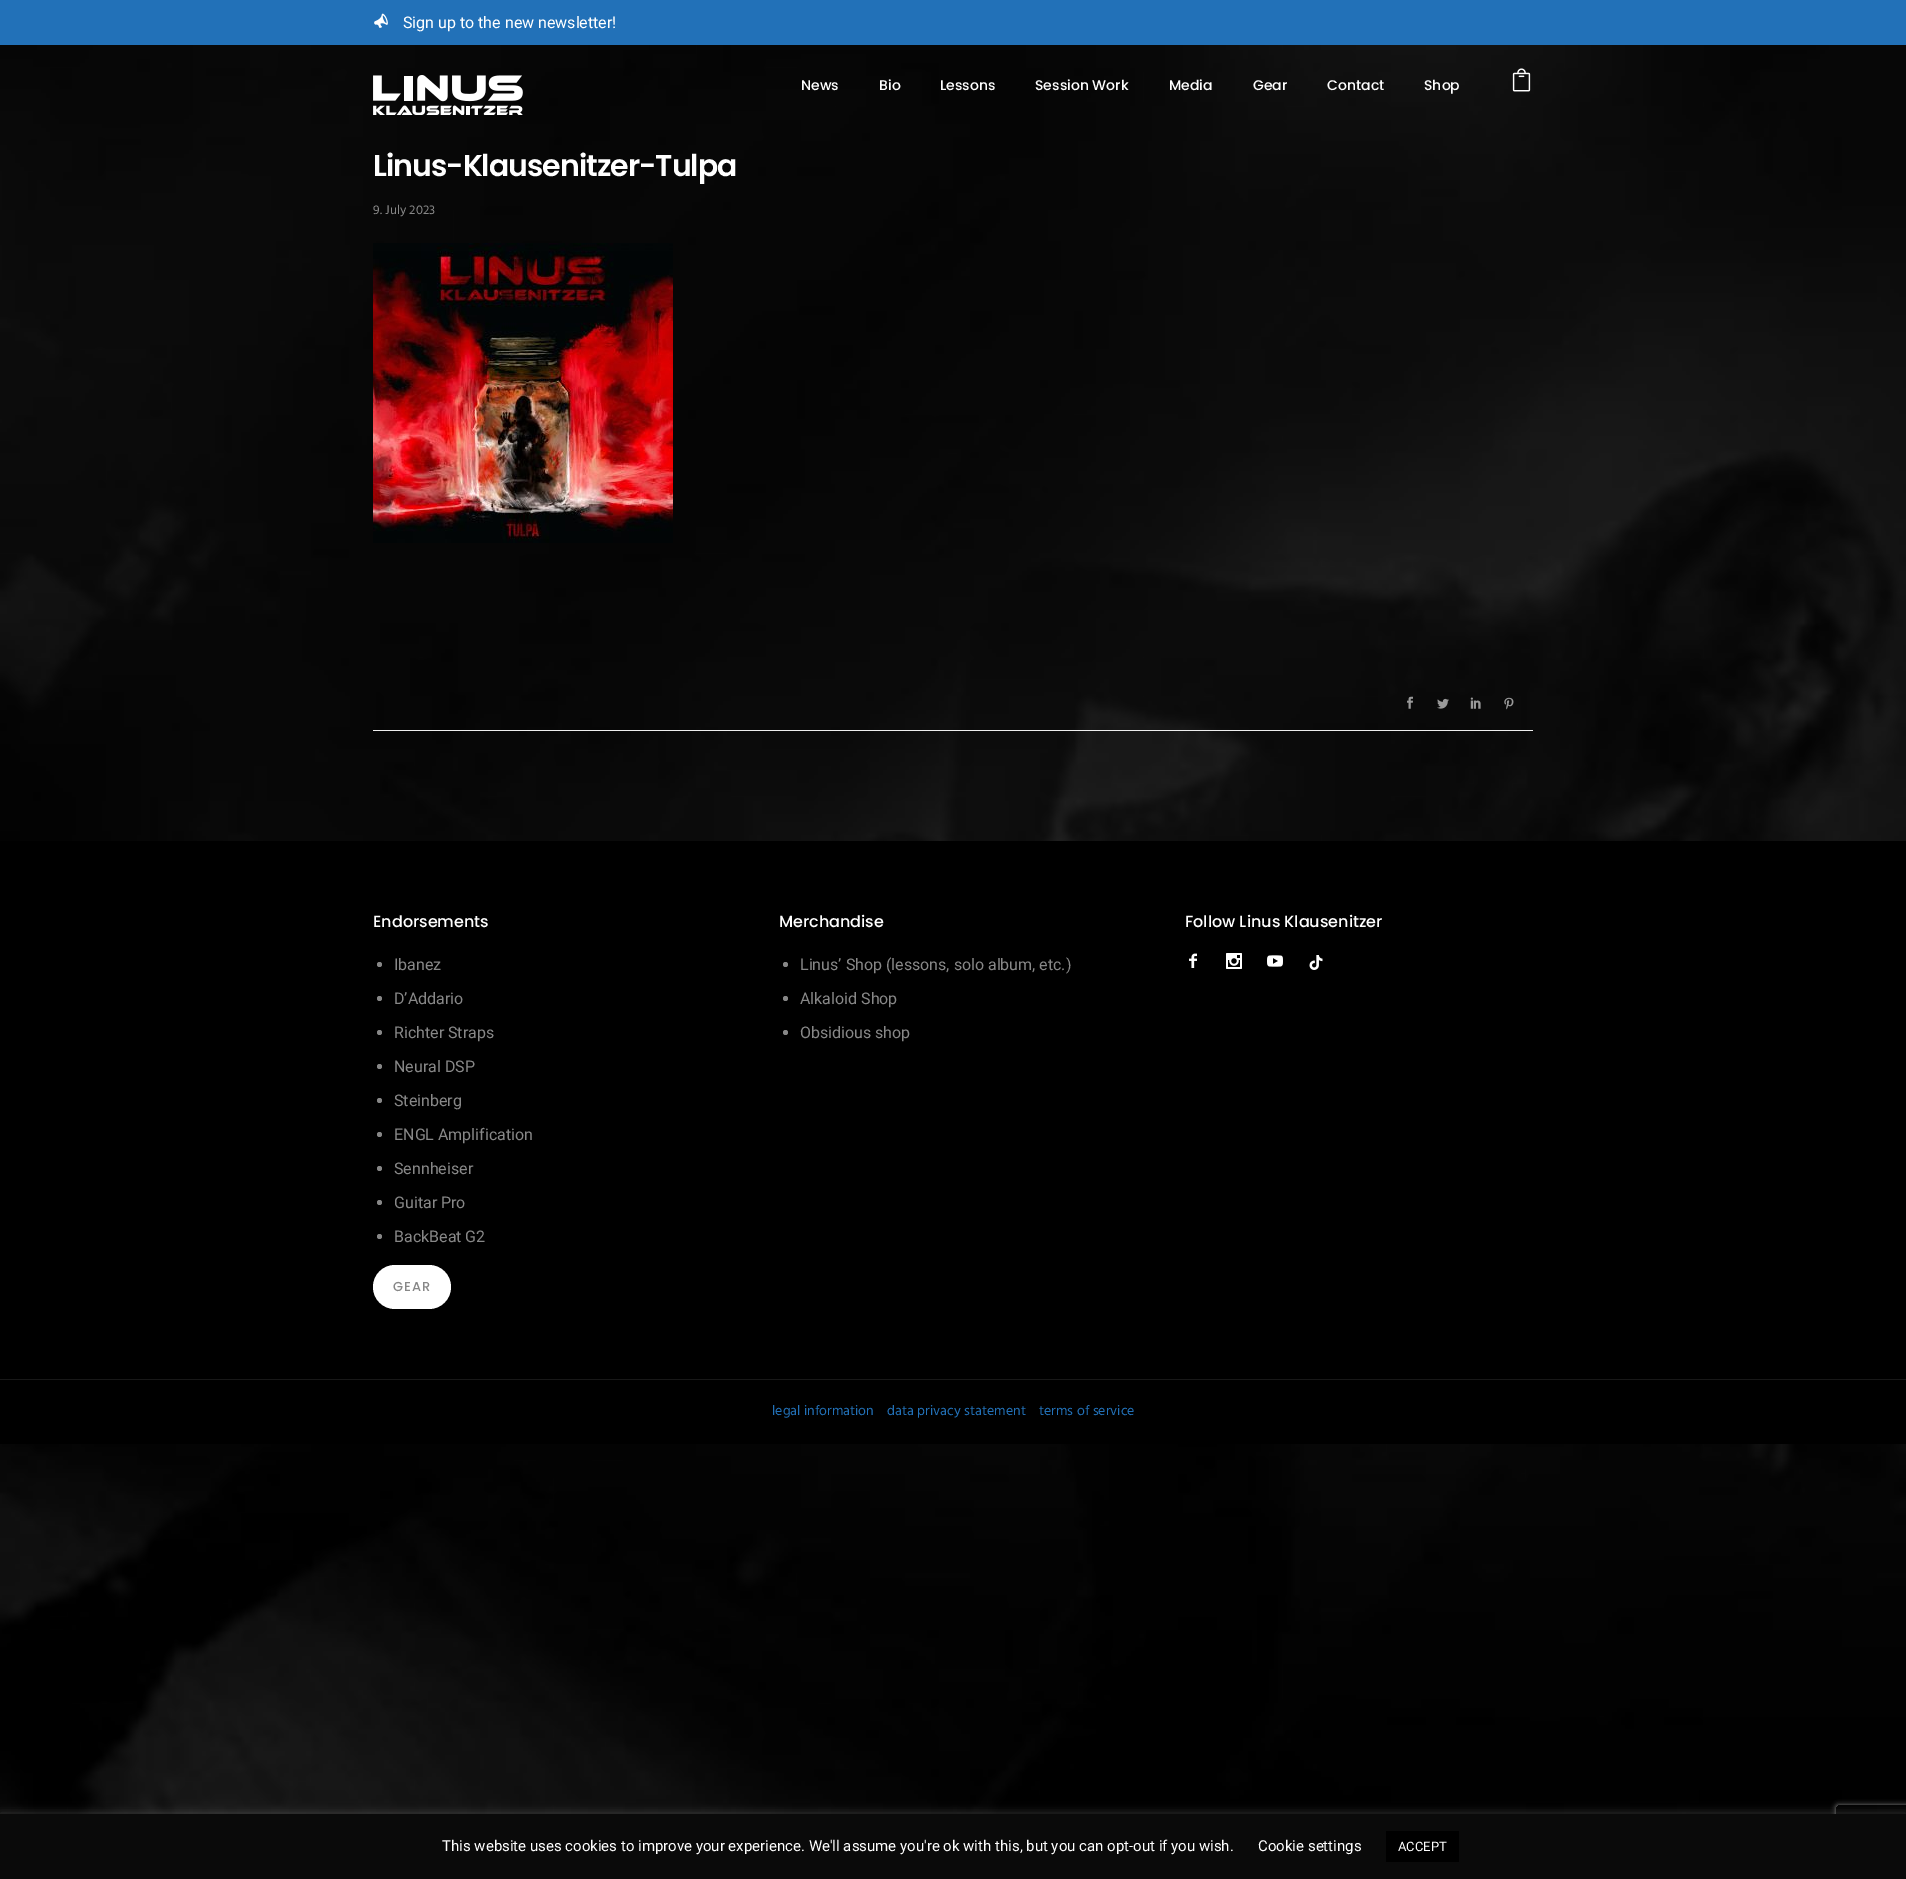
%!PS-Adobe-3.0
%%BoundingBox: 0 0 1906 1879
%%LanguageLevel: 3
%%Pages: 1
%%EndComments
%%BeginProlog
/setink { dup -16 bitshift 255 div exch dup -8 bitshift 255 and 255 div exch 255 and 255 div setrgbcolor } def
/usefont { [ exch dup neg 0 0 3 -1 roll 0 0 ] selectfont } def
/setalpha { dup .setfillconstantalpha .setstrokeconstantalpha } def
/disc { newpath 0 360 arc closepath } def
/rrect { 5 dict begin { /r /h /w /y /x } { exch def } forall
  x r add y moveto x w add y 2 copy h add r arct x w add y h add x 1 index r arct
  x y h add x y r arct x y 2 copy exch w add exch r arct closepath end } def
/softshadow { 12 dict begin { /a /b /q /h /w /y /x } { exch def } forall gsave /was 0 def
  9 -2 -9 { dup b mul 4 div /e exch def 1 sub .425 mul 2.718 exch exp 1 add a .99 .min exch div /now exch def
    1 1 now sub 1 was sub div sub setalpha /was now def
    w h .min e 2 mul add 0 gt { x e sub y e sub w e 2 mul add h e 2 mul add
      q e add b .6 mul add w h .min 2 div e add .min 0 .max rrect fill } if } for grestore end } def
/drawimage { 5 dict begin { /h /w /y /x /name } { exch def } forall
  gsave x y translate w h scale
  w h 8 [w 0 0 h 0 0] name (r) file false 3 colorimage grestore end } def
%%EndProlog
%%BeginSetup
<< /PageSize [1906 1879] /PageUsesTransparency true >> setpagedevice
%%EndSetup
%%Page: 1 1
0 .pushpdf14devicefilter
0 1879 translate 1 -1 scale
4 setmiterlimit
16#FFFFFF setink
0 0 1906 1879 rectfill
(img1.raw) 0 45 1906 1769 drawimage
16#2271B8 setink
0 0 1906 45 rectfill
(img2.raw) 374 13 14 15 drawimage
/Roboto-Regular 16 usefont
16#FFFFFF setink
403 28 moveto (Sign up to the new newsletter!) show
(img3.raw) 373 75 150 40 drawimage
/Poppins-Medium 14 usefont
[
    [(News) 801 90]
    [(Bio) 879 90]
    [(Lessons) 940 90]
    [(Session Work) 1035 90]
    [(Media) 1169 90]
    [(Gear) 1253 90]
    [(Contact) 1327 90]
    [(Shop) 1424 90]
] { aload pop moveto show } forall
(img4.raw) 1512 68 19 24 drawimage
/Poppins-SemiBold 30 usefont
373 176 moveto -1 0 (Linus-Klausenitzer-Tulpa) ashow
/Hind-Regular 13 usefont
16#878787 setink
373 214 moveto (9. July 2023) show
(img5.raw) 373 243 300 300 drawimage
16#EEEEEE setink
373 730 1160 1 rectfill
(img6.raw) 1407 696 6 13 drawimage
(img7.raw) 1437 698 12 11 drawimage
(img8.raw) 1470 697 11 12 drawimage
(img9.raw) 1504 697 10 13 drawimage
16#000000 setink
0 841 1906 538 rectfill
/Poppins-Medium 16 usefont
16#FFFFFF setink
373 927 moveto (Endorsements) show
16#878787 setink
379.5 964.5 2.5 disc fill
/Roboto-Regular 16 usefont
394 970 moveto (Ibanez) show
379.5 998.5 2.5 disc fill
394 1004 moveto (D’Addario) show
379.5 1032.5 2.5 disc fill
394 1038 moveto (Richter Straps) show
379.5 1066.5 2.5 disc fill
394 1072 moveto (Neural DSP) show
379.5 1100.5 2.5 disc fill
394 1106 moveto (Steinberg) show
379.5 1134.5 2.5 disc fill
394 1140 moveto (ENGL Amplification) show
379.5 1168.5 2.5 disc fill
394 1174 moveto (Sennheiser) show
379.5 1202.5 2.5 disc fill
394 1208 moveto (Guitar Pro) show
379.5 1236.5 2.5 disc fill
394 1242 moveto (BackBeat G2) show
16#FFFFFF setink
373 1265 78 44 22 rrect fill
/Poppins-Medium 13 usefont
16#878787 setink
393 1291 moveto 1 0 (GEAR) ashow
/Poppins-Medium 16 usefont
16#FFFFFF setink
779 927 moveto (Merchandise) show
16#878787 setink
785.5 964.5 2.5 disc fill
/Roboto-Regular 16 usefont
800 970 moveto (Linus’ Shop \(lessons, solo album, etc.\)) show
785.5 998.5 2.5 disc fill
800 1004 moveto (Alkaloid Shop) show
785.5 1032.5 2.5 disc fill
800 1038 moveto (Obsidious shop) show
/Poppins-Medium 16 usefont
16#FFFFFF setink
1185 927 moveto (Follow Linus Klausenitzer) show
(img10.raw) 1189 953 8 15 drawimage
(img11.raw) 1226 953 16 16 drawimage
(img12.raw) 1267 955 16 12 drawimage
(img13.raw) 1309 955 14 15 drawimage
16#000000 setink
0 1380 1906 64 rectfill
16#181818 setink
0 1379 1906 1 rectfill
/Hind-Regular 14 usefont
16#2271B8 setink
[
    [(legal information) 772 1415]
    [(data privacy statement) 887 1415]
    [(terms of service) 1039 1415]
] { aload pop moveto show } forall
16#ACABAB setink
0 1813 1906 65 0 5 0.3 softshadow
gsave
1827 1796 moveto 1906 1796 lineto 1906 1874 lineto 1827 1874 lineto closepath 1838 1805 moveto 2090 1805 lineto 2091 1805 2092 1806 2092 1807 curveto 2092 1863 lineto 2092 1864 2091 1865 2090 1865 curveto 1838 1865 lineto 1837 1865 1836 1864 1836 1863 curveto 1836 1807 lineto 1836 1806 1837 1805 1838 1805 curveto closepath eoclip newpath
16#808080 setink
1836 1805 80 60 2 2.5 1 softshadow
grestore
16#0A0A0A setink
0 1814 1906 65 rectfill
/Roboto-Regular 15 usefont
16#FFFFFF setink
442 1851 moveto (This website uses cookies to improve your experience. We'll assume you're ok with this, but you can opt-out if you wish.) show
1258 1851 moveto (Cookie settings) show
16#000000 setink
1386 1831 73 31 rectfill
/Roboto-Regular 13 usefont
16#FFFFFF setink
1398 1851 moveto (ACCEPT) show
.poppdf14devicefilter showpage
%%EOF
